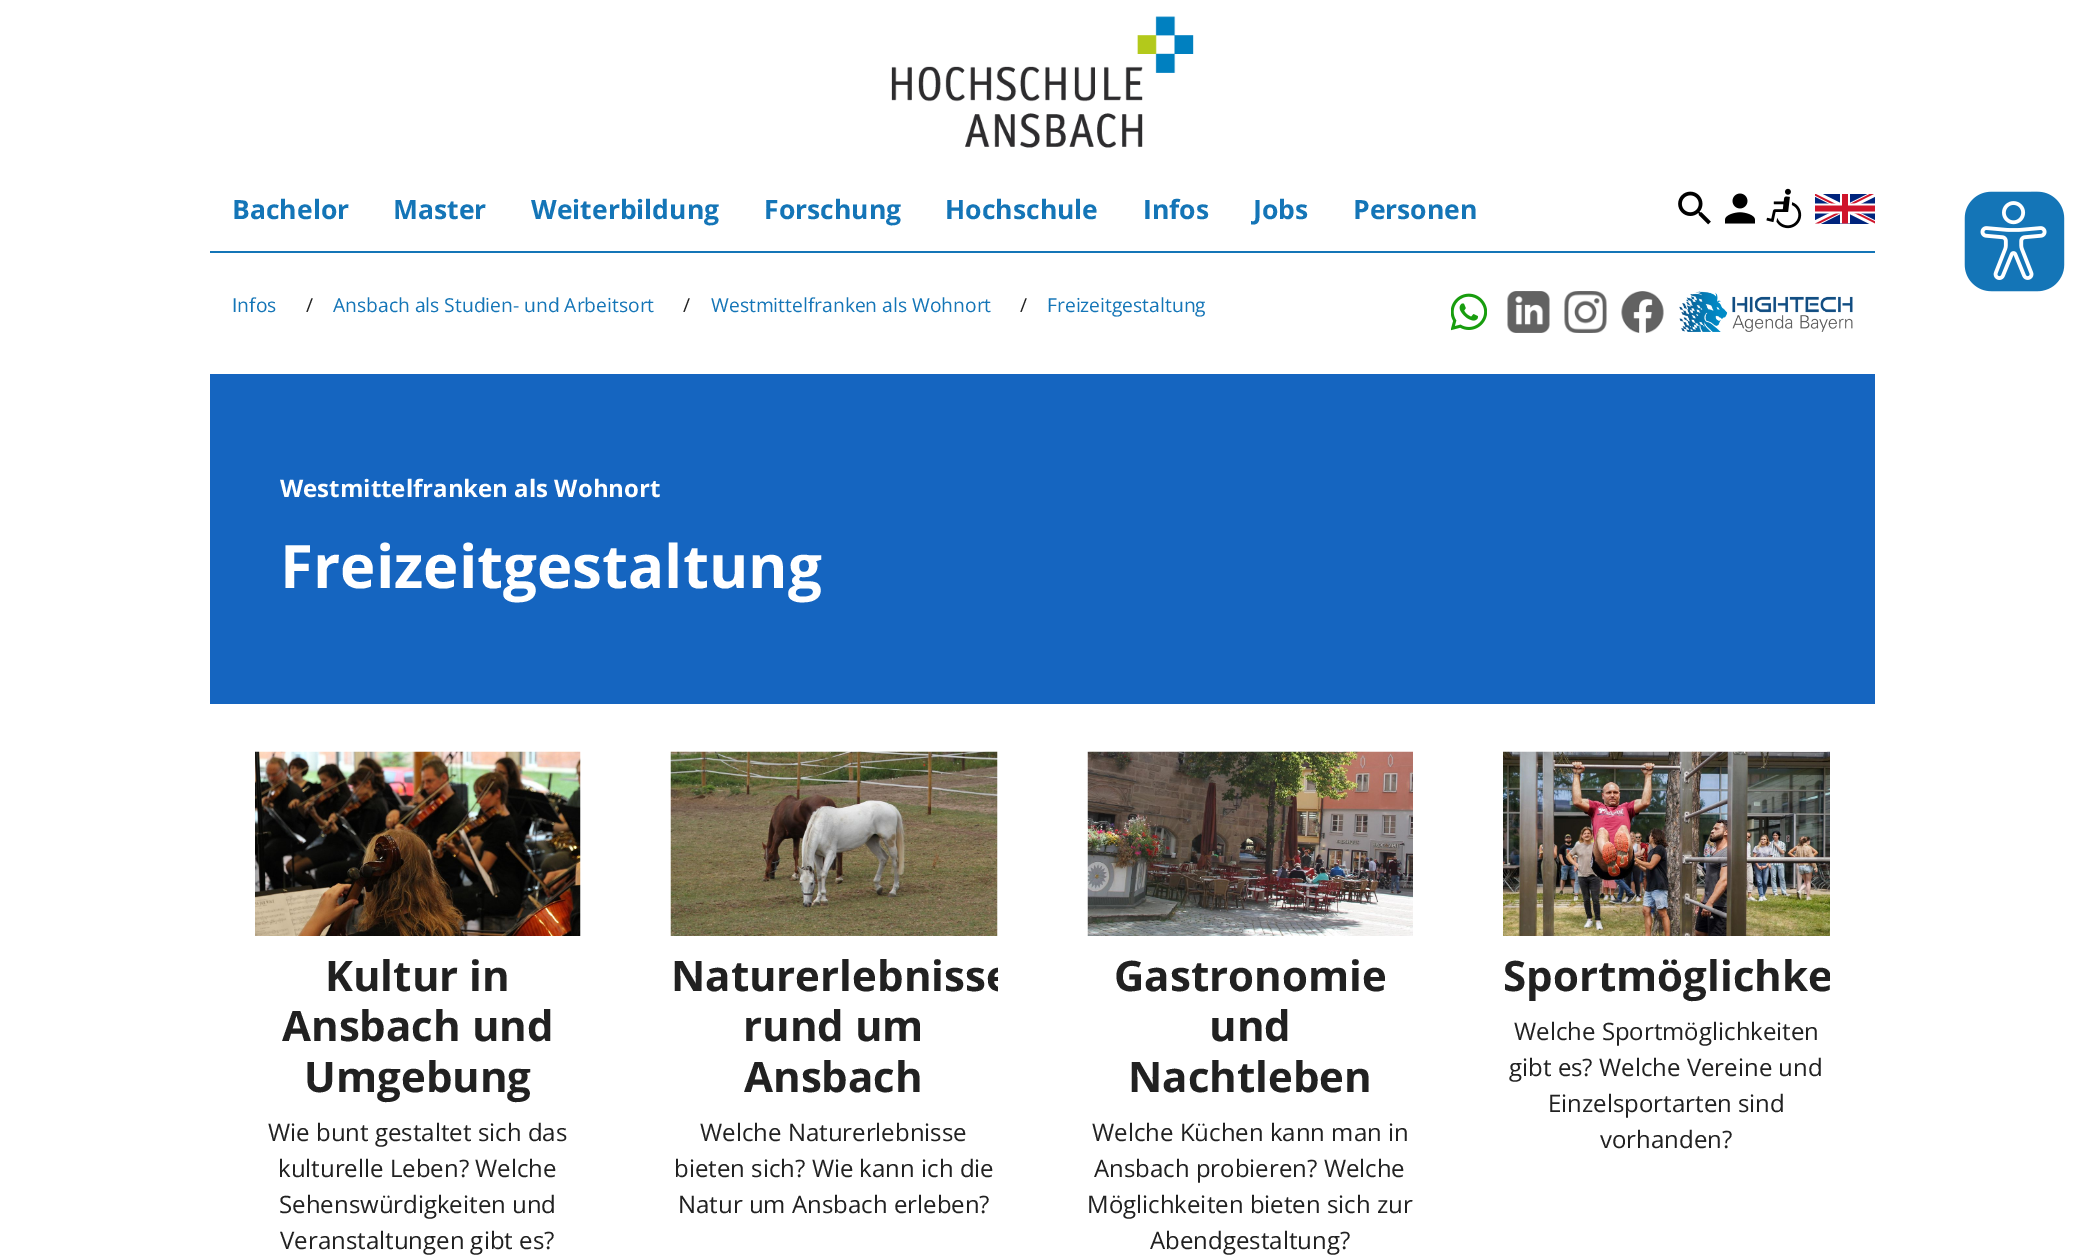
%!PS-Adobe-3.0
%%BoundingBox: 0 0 2083 1256
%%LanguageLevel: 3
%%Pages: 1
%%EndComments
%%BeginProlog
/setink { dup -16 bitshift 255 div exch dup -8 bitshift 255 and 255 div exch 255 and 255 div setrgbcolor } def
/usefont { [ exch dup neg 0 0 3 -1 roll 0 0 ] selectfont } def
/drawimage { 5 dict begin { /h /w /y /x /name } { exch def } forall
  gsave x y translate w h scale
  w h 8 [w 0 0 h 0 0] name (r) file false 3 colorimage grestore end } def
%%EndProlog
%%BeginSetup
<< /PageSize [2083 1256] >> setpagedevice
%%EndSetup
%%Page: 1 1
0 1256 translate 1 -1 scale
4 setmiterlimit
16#FFFFFF setink
0 0 2083 1256 rectfill
(img1.raw) 891 16 303 132 drawimage
16#1475B7 setink
210 251 1665 2 rectfill
/OpenSans-Bold 26.5 usefont
[
    [(Bachelor) 232 219]
    [(Master) 393 219]
    [(Weiterbildung) 531 219]
    [(Forschung) 764 219]
    [(Hochschule) 945 219]
    [(Infos) 1143 219]
    [(Jobs) 1253 219]
    [(Personen) 1353 219]
] { aload pop moveto show } forall
(img2.raw) 1678 191 33 34 drawimage
(img3.raw) 1725 193 30 31 drawimage
(img4.raw) 1766 188 36 41 drawimage
(img5.raw) 1815 194 60 30 drawimage
/OpenSans-Regular 19.25 usefont
232 312 moveto (Infos) show
16#212121 setink
306 312 moveto (/) show
16#1475B7 setink
333 312 moveto (Ansbach als Studien- und Arbeitsort) show
16#212121 setink
683 312 moveto (/) show
16#1475B7 setink
711 312 moveto (Westmittelfranken als Wohnort) show
16#212121 setink
1020 312 moveto (/) show
16#1475B7 setink
1047 312 moveto (Freizeitgestaltung) show
(img6.raw) 1451 293 36 38 drawimage
(img7.raw) 1507 291 43 42 drawimage
(img8.raw) 1564 291 43 42 drawimage
(img9.raw) 1621 291 43 42 drawimage
(img10.raw) 1679 291 174 41 drawimage
16#1565C0 setink
210 374 1665 330 rectfill
/OpenSans-Bold 24 usefont
16#FFFFFF setink
280 497 moveto (Westmittelfranken als Wohnort) show
/OpenSans-Bold 60 usefont
280 588 moveto (Freizeitgestaltung) show
(img11.raw) 255 751 326 185 drawimage
/OpenSans-Bold 42 usefont
16#212121 setink
[
    [(Kultur in) 325 991]
    [(Ansbach und) 282 1041]
    [(Umgebung) 304 1092]
] { aload pop moveto show } forall
/OpenSans-Regular 24 usefont
[
    [(Wie bunt gestaltet sich das) 268 1141]
    [(kulturelle Leben? Welche) 278 1177]
    [(Sehenswürdigkeiten und) 279 1213]
    [(Veranstaltungen gibt es?) 280 1249]
] { aload pop moveto show } forall
(img12.raw) 670 751 328 185 drawimage
gsave
671 752 327 493 rectclip
/OpenSans-Bold 42 usefont
671 991 moveto (Naturerlebnisse) show
grestore
/OpenSans-Bold 42 usefont
743 1041 moveto (rund um) show
744 1092 moveto (Ansbach) show
/OpenSans-Regular 24 usefont
[
    [(Welche Naturerlebnisse) 700 1141]
    [(bieten sich? Wie kann ich die) 674 1177]
    [(Natur um Ansbach erleben?) 678 1213]
] { aload pop moveto show } forall
(img13.raw) 1087 751 326 185 drawimage
/OpenSans-Bold 42 usefont
[
    [(Gastronomie) 1114 991]
    [(und) 1209 1041]
    [(Nachtleben) 1128 1092]
] { aload pop moveto show } forall
/OpenSans-Regular 24 usefont
[
    [(Welche Küchen kann man in) 1092 1141]
    [(Ansbach probieren? Welche) 1094 1177]
    [(Möglichkeiten bieten sich zur) 1087 1213]
    [(Abendgestaltung?) 1150 1249]
] { aload pop moveto show } forall
(img14.raw) 1503 751 327 185 drawimage
gsave
1503 752 327 429 rectclip
/OpenSans-Bold 42 usefont
1503 991 moveto (Sportmöglichke) show
grestore
[
    [(Welche Sportmöglichkeiten) 1514 1040]
    [(gibt es? Welche Vereine und) 1509 1076]
    [(Einzelsportarten sind) 1548 1112]
    [(vorhanden?) 1600 1148]
] { aload pop moveto show } forall
(img15.raw) 1964 191 101 101 drawimage
showpage
%%EOF
